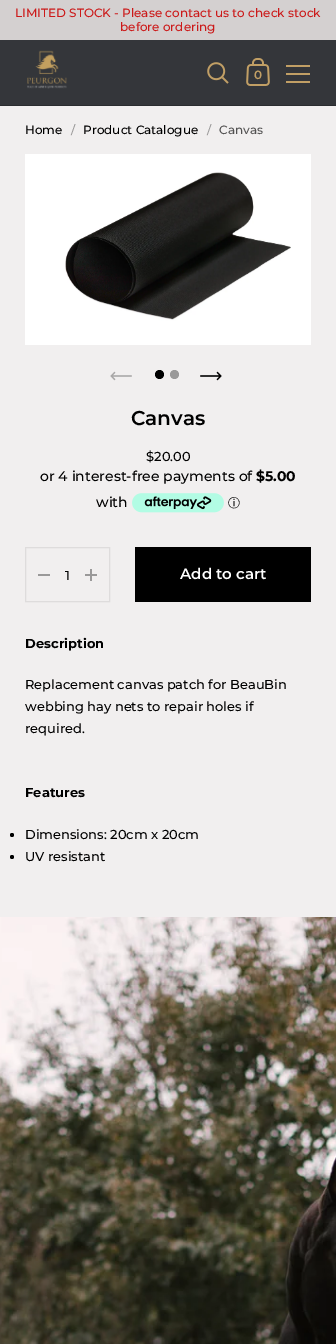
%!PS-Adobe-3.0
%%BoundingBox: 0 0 336 1344
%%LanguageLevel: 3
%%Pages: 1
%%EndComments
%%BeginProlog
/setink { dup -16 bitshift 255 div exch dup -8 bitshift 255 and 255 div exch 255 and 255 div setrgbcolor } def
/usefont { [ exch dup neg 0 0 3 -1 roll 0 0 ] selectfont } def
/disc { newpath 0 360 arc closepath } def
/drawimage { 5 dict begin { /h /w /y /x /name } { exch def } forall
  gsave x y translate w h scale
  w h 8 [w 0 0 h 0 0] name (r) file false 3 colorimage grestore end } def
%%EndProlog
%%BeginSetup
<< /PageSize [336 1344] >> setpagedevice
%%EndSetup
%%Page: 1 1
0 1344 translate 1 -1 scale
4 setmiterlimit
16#F1EFEF setink
0 0 336 1344 rectfill
16#D4D0D0 setink
0 0 336 40 rectfill
/Montserrat-Medium 12 usefont
16#CC1919 setink
15 17 moveto (LIMITED STOCK - Please contact us to check stock) show
120 31 moveto (before ordering) show
16#2A2C2F setink
0 105 336 1 rectfill
16#34363A setink
0 40 336 65 rectfill
(img1.raw) 27 50 40 39 drawimage
(img2.raw) 207 62 22 22 drawimage
(img3.raw) 246 58 24 28 drawimage
/Montserrat-SemiBold 12 usefont
16#C19F65 setink
254 79 moveto (0) show
[
    [286 65 24 2 16#C19F65]
    [286 73 24 2 16#C19F65]
    [286 81 24 2 16#C19F65]
] { aload pop setink rectfill } forall
/Montserrat-Medium 12 usefont
16#000000 setink
25 134 moveto (Home) show
16#9A9999 setink
71 134 moveto (/) show
16#000000 setink
83 134 moveto (Product Catalogue) show
16#9A9999 setink
207 134 moveto (/) show
16#525151 setink
219 134 moveto (Canvas) show
(img4.raw) 25 154 286 191 drawimage
(img5.raw) 110 371 22 10 drawimage
16#000000 setink
159.5 374.5 4.5 disc fill
16#9A9999 setink
174.5 374.5 4.5 disc fill
(img6.raw) 200 371 22 10 drawimage
/Montserrat-SemiBold 20 usefont
16#000000 setink
131 425 moveto (Canvas) show
/Montserrat-Medium 13 usefont
146 461 moveto ($20.00) show
/Montserrat-Medium 14 usefont
40 481 moveto (or 4 interest-free payments of) show
/Montserrat-Bold 14 usefont
256 481 moveto ($5.00) show
/Montserrat-Medium 14 usefont
96 507 moveto (with) show
(img7.raw) 132 493 92 20 drawimage
/WenQuanYiZenHei-Medium 12 usefont
228 507 moveto (ⓘ) show
16#DEDCDC setink
25.5 547.5 84 54 rectstroke
16#9A9999 setink
38 574 12 2 rectfill
/Montserrat-Medium 13 usefont
16#000000 setink
65 580 moveto (1) show
(img8.raw) 85 569 12 12 drawimage
135 547 176 55 rectfill
/Montserrat-SemiBold 15 usefont
16#FFFFFF setink
180 579 moveto (Add to cart) show
/Montserrat-Bold 13 usefont
16#000000 setink
25 648 moveto (Description) show
/Montserrat-Medium 13 usefont
[
    [(Replacement canvas patch for BeauBin) 25 689]
    [(webbing hay nets to repair holes if) 25 711]
    [(required.) 25 733]
] { aload pop moveto show } forall
/Montserrat-Bold 13 usefont
25 797 moveto (Features) show
12 835 2 disc fill
/Montserrat-Medium 13 usefont
25 839 moveto (Dimensions: 20cm x 20cm) show
12 857 2 disc fill
25 861 moveto (UV resistant) show
(img9.raw) 0 917 336 427 drawimage
showpage
%%EOF
